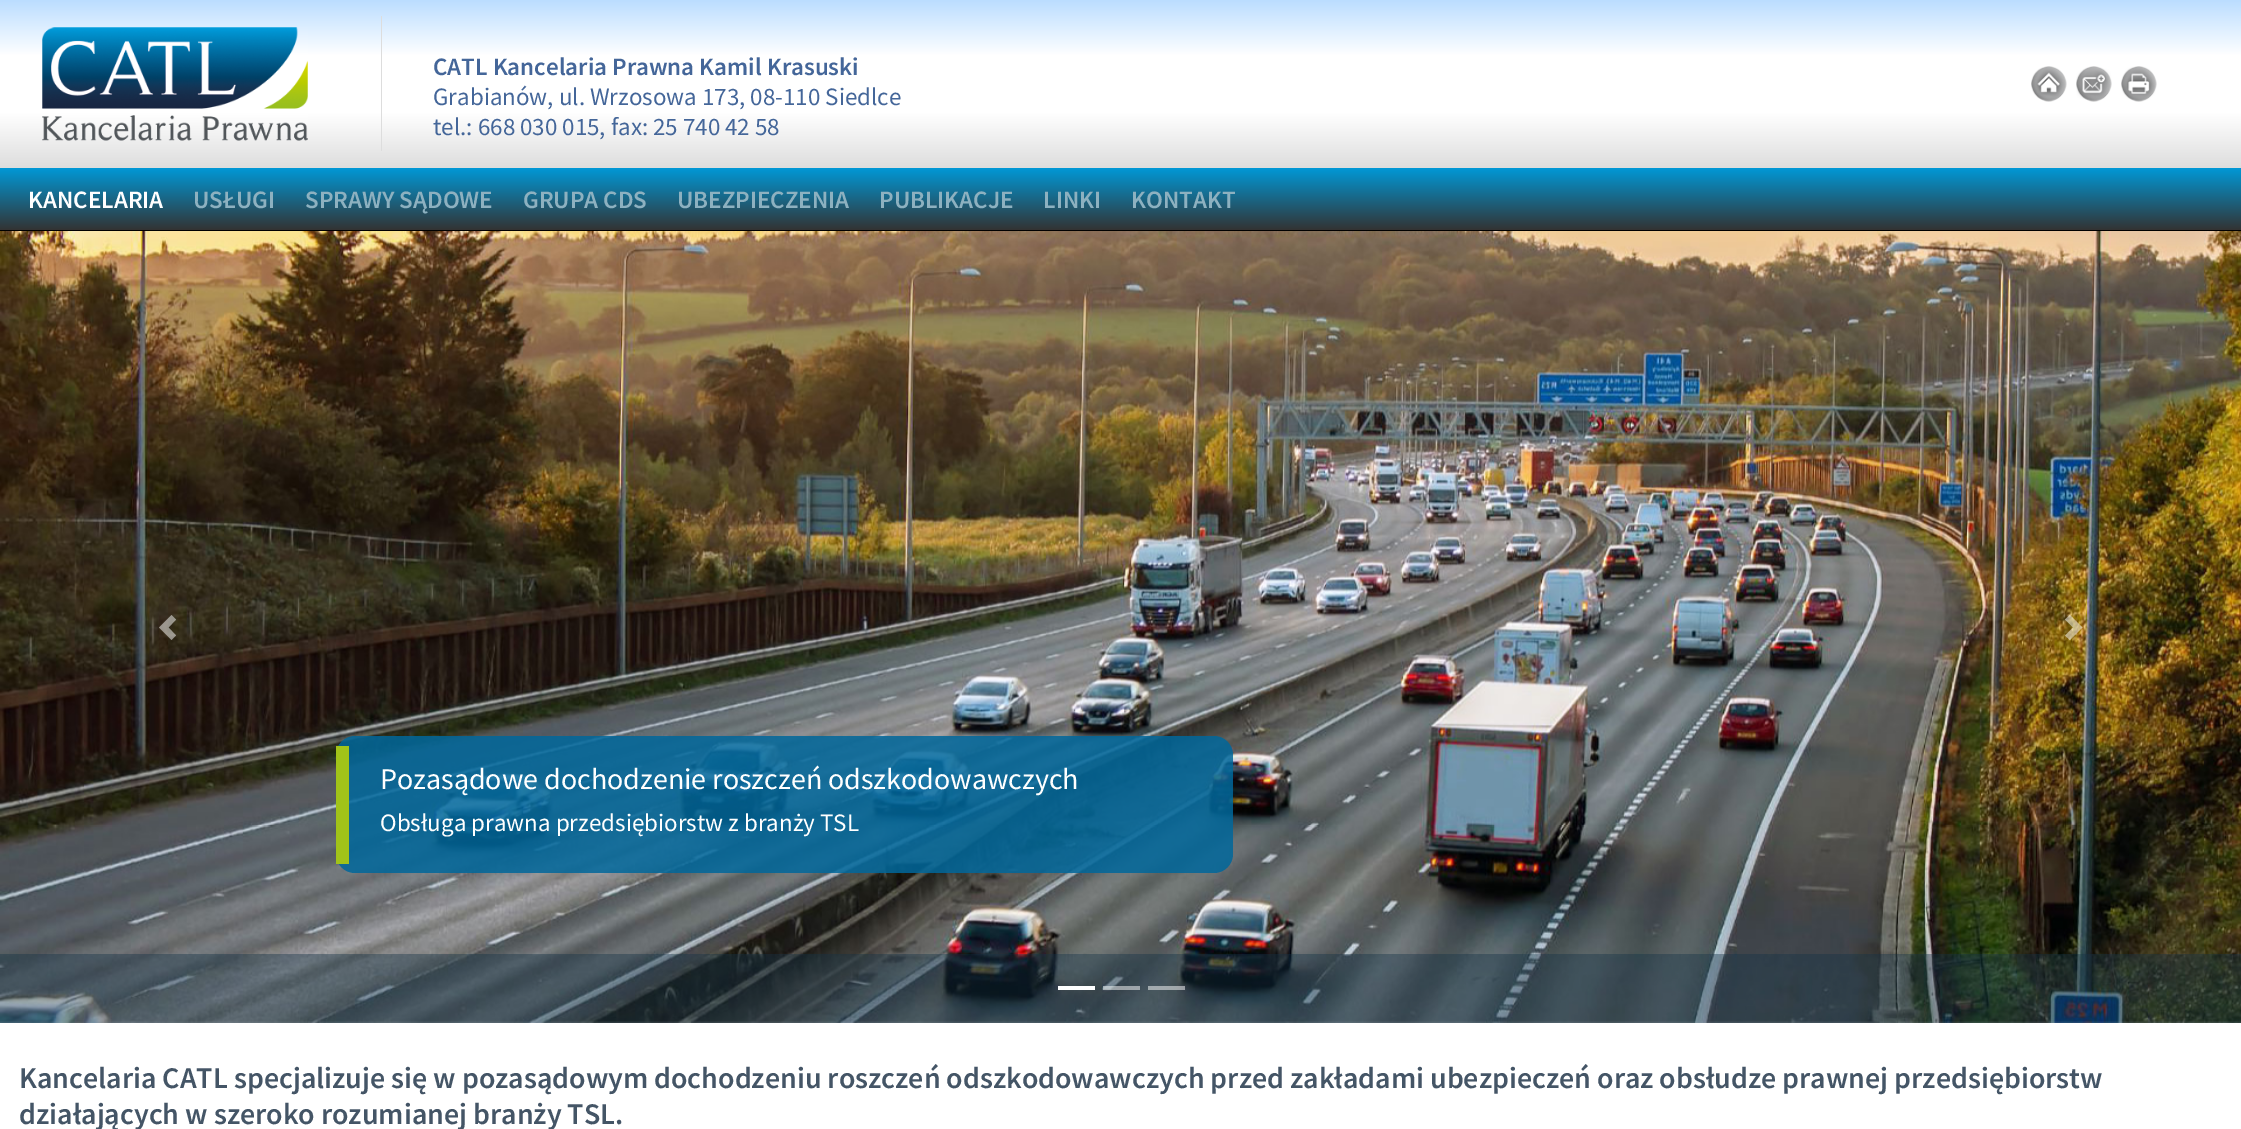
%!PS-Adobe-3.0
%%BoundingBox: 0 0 2241 1129
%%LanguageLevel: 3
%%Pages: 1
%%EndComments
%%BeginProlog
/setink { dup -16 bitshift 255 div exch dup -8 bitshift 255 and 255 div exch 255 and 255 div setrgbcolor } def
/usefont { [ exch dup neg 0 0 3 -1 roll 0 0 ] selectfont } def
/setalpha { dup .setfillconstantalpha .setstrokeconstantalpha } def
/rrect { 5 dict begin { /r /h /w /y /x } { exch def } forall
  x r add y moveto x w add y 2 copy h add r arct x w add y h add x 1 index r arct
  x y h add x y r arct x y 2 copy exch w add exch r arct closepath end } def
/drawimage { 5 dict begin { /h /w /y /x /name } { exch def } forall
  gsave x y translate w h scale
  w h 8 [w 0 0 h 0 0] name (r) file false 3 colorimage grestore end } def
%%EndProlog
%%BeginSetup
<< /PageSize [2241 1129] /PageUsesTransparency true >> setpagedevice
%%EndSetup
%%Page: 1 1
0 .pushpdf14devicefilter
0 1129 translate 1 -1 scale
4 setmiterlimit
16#FFFFFF setink
0 0 2241 1129 rectfill
gsave 0 0 moveto 2241 0 lineto 2241 168 lineto 0 168 lineto closepath clip newpath
<< /ShadingType 2 /ColorSpace /DeviceRGB /Coords [1121 0 1121 168] /Extend [true true] /Function << /FunctionType 3 /Domain [0 1] /Functions [<< /FunctionType 2 /Domain [0 1] /C0 [0.733 0.867 1] /C1 [1 1 1] /N 1 >> << /FunctionType 2 /Domain [0 1] /C0 [1 1 1] /C1 [1 1 1] /N 1 >> << /FunctionType 2 /Domain [0 1] /C0 [1 1 1] /C1 [0.867 0.867 0.867] /N 1 >>] /Bounds [0.33 0.67] /Encode [0 1 0 1 0 1] >> >> shfill grestore
(img1.raw) 42 27 266 114 drawimage
16#DDDDDD setink
381 16 1 135 rectfill
/SourceSansPro-SemiBold 25 usefont
16#446699 setink
433 75 moveto (CATL Kancelaria Prawna Kamil Krasuski) show
/SourceSansPro-Regular 25 usefont
433 105 moveto (Grabianów, ul. Wrzosowa 173, 08-110 Siedlce) show
433 135 moveto (tel.: 668 030 015, fax: 25 740 42 58) show
(img2.raw) 2031 66 36 36 drawimage
(img3.raw) 2076 66 36 36 drawimage
(img4.raw) 2121 66 36 36 drawimage
gsave 0 168 moveto 2241 168 lineto 2241 230 lineto 0 230 lineto closepath clip newpath
<< /ShadingType 2 /ColorSpace /DeviceRGB /Coords [1121 167 1121 230] /Extend [true true] /Function << /FunctionType 2 /Domain [0 1] /C0 [0 0.604 0.851] /C1 [0.2 0.2 0.2] /N 1 >> >> shfill grestore
16#000000 setink
0 230 2241 1 rectfill
/SourceSansPro-SemiBold 25 usefont
16#FFFFFF setink
28 208 moveto (KANCELARIA) show
16#8DB1C0 setink
[
    [(USŁUGI) 193 208]
    [(SPRAWY SĄDOWE) 305 208]
    [(GRUPA CDS) 523 208]
    [(UBEZPIECZENIA) 677 208]
    [(PUBLIKACJE) 879 208]
    [(LINKI) 1043 208]
    [(KONTAKT) 1131 208]
] { aload pop moveto show } forall
(img5.raw) 0 231 2241 792 drawimage
0.5 setalpha
16#FFFFFF setink
171.5 615 moveto 159 627.5 lineto 171.5 640 lineto 176 635.5 lineto 168.5 627.5 lineto 176 619.5 lineto closepath fill
2070 615 moveto 2065 619.5 lineto 2073 627.5 lineto 2065 635.5 lineto 2070 640 lineto 2082.5 627.5 lineto closepath fill
0.4 setalpha
16#143246 setink
0 954 2241 69 rectfill
0.85 setalpha
16#00679B setink
336 736 897 137 19 rrect fill
1 setalpha
16#A1C319 setink
336 746 13 118 rectfill
/SourceSansPro-Regular 30 usefont
16#FFFFFF setink
380 789 moveto (Pozasądowe dochodzenie roszczeń odszkodowawczych) show
/SourceSansPro-Regular 25 usefont
380 831 moveto (Obsługa prawna przedsiębiorstw z branży TSL) show
[
    [1058 986 37 4 16#FFFFFF]
] { aload pop setink rectfill } forall
0.5 setalpha
[
    [1103 986 37 4 16#FFFFFF]
    [1148 986 37 4 16#FFFFFF]
] { aload pop setink rectfill } forall
/SourceSansPro-SemiBold 30 usefont
1 setalpha
16#445566 setink
19 1088 moveto (Kancelaria CATL specjalizuje się w pozasądowym dochodzeniu roszczeń odszkodowawczych przed zakładami ubezpieczeń oraz obsłudze prawnej przedsiębiorstw) show
19 1124 moveto (działających w szeroko rozumianej branży TSL.) show
.poppdf14devicefilter showpage
%%EOF
